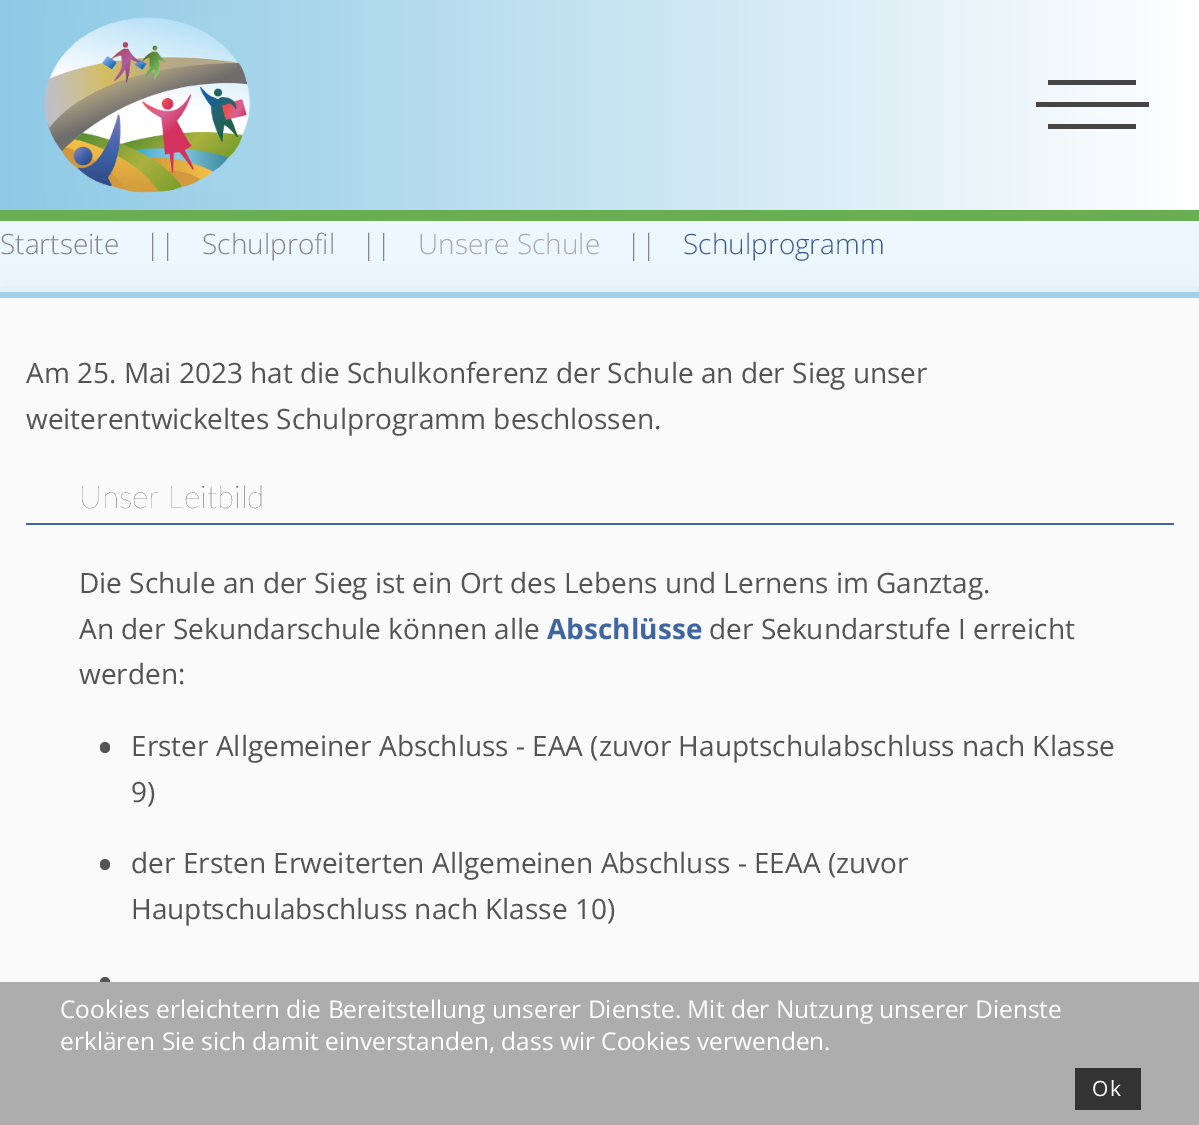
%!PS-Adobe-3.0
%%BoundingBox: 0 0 1199 1125
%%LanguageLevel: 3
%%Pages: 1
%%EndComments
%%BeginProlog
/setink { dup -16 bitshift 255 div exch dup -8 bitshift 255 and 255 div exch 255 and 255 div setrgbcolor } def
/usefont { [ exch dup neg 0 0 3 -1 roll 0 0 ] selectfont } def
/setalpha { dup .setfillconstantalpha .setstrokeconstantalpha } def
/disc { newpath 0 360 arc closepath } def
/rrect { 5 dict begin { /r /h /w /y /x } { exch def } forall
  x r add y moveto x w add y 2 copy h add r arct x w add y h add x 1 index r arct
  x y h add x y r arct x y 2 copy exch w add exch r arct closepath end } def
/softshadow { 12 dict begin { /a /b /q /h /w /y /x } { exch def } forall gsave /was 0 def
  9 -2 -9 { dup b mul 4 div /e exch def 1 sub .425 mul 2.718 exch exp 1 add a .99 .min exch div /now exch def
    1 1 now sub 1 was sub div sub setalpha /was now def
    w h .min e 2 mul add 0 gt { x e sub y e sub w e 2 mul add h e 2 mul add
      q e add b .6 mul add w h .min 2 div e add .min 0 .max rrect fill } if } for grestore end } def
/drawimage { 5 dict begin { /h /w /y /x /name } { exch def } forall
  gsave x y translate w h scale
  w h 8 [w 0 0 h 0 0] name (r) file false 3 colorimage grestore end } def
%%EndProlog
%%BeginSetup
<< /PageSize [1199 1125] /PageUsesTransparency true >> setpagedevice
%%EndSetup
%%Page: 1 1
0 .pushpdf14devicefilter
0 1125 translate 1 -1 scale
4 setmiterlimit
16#EDF7FF setink
0 0 1199 1125 rectfill
16#69AE53 setink
0 210 1199 11 rectfill
gsave 0 0 moveto 1199 0 lineto 1199 210 lineto 0 210 lineto closepath clip newpath
<< /ShadingType 2 /ColorSpace /DeviceRGB /Coords [0 105 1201 105] /Extend [true true] /Function << /FunctionType 2 /Domain [0 1] /C0 [0.553 0.788 0.898] /C1 [1 1 1] /N 1 >> >> shfill grestore
(img1.raw) 44 17 207 176 drawimage
16#454545 setink
1048 80 moveto 1136 80 lineto 1136 85 lineto 1048 85 lineto closepath 1048 124 moveto 1136 124 lineto 1136 129 lineto 1048 129 lineto closepath 1036 102 moveto 1149 102 lineto 1149 107 lineto 1036 107 lineto closepath fill
/OpenSans-Light 28 usefont
16#858585 setink
[
    [(Startseite) 0 254]
    [(||) 145 254]
    [(Schulprofil) 202 254]
    [(||) 361 254]
] { aload pop moveto show } forall
16#ABABAB setink
418 254 moveto (Unsere Schule) show
16#858585 setink
626 254 moveto (||) show
16#3D5B94 setink
683 254 moveto (Schulprogramm) show
16#9797A3 setink
0 296 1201 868 0 13 0.25 softshadow
16#FAFAFA setink
0 298 1199 684 rectfill
16#A0D1E9 setink
0 292 1199 6 rectfill
/OpenSans-Regular 28 usefont
16#555454 setink
26 383 moveto (Am 25. Mai 2023 hat die Schulkonferenz der Schule an der Sieg unser) show
26 429 moveto (weiterentwickeltes Schulprogramm beschlossen.) show
16#3F66A1 setink
26 523 1148 2 rectfill
/Lato-ExtraLight 31.5 usefont
16#555454 setink
79 508 moveto (Unser Leitbild) show
/OpenSans-Regular 28 usefont
79 593 moveto (Die Schule an der Sieg ist ein Ort des Lebens und Lernens im Ganztag.) show
79 639 moveto (An der Sekundarschule können alle) show
/OpenSans-Bold 28 usefont
16#3F66A1 setink
547 639 moveto (Abschlüsse) show
/OpenSans-Regular 28 usefont
16#555454 setink
709 639 moveto (der Sekundarstufe I erreicht) show
79 684 moveto (werden:) show
100 742 10 11 5 rrect fill
131 756 moveto (Erster Allgemeiner Abschluss - EAA \(zuvor Hauptschulabschluss nach Klasse) show
131 802 moveto (9\)) show
100 859 10 11 5 rrect fill
131 873 moveto (der Ersten Erweiterten Allgemeinen Abschluss - EEAA \(zuvor) show
131 919 moveto (Hauptschulabschluss nach Klasse 10\)) show
105 982 5 disc fill
16#ADADAD setink
0 982 1199 143 rectfill
/OpenSans-Regular 24.5 usefont
16#FFFFFF setink
60 1018 moveto (Cookies erleichtern die Bereitstellung unserer Dienste. Mit der Nutzung unserer Dienste) show
60 1050 moveto (erklären Sie sich damit einverstanden, dass wir Cookies verwenden.) show
16#333333 setink
1075 1068 66 42 rectfill
/OpenSans-Regular 21 usefont
16#FFFFFF setink
1092 1096 moveto 2 0 (Ok) ashow
.poppdf14devicefilter showpage
%%EOF
